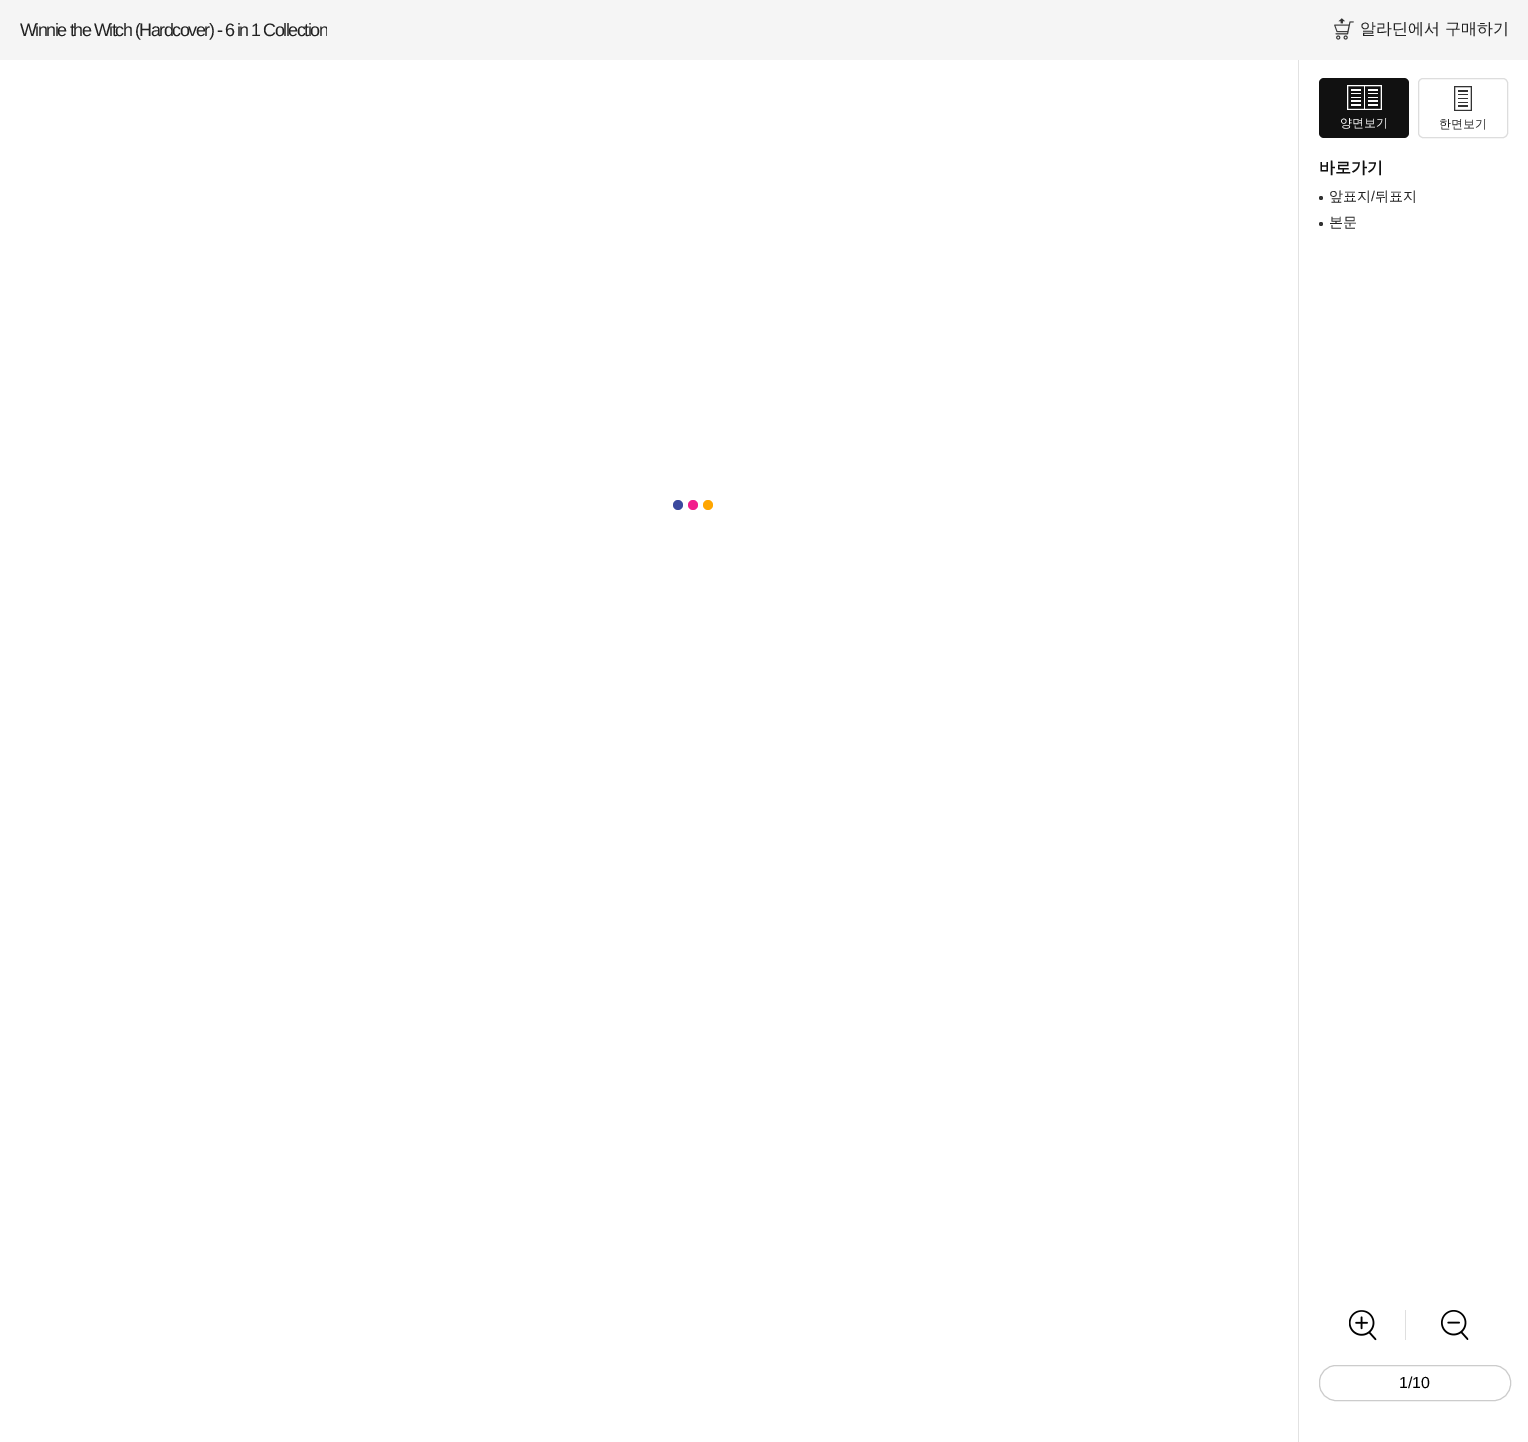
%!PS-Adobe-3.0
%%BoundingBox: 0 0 1528 1442
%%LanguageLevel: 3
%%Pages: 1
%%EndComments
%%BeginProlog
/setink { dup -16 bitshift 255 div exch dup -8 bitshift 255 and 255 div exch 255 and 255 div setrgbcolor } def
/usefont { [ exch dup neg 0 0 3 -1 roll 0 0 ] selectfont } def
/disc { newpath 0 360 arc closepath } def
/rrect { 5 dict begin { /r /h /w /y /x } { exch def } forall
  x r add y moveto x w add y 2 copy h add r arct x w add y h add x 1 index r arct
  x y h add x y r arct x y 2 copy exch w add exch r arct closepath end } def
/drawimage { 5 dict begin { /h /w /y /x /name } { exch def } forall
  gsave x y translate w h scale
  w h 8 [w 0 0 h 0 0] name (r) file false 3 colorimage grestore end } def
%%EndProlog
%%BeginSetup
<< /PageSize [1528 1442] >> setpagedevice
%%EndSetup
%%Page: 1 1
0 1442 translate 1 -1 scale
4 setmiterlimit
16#FFFFFF setink
0 0 1528 1442 rectfill
16#F5F5F5 setink
0 0 1528 60 rectfill
gsave
20 0 307 60 rectclip
/LiberationSans-Regular 18 usefont
16#222222 setink
20 36 moveto -1.5 0 (Winnie the Witch \(Hardcover\) - 6 in 1 Collection) ashow
grestore
(img1.raw) 1334 18 20 22 drawimage
/WenQuanYiZenHei-Medium 16 usefont
16#222222 setink
1360 34 moveto (알라딘에서 구매하기) show
16#E2E2E2 setink
1298 60 1 1382 rectfill
16#111111 setink
1319 78 90 60 5 rrect fill
(img2.raw) 1347 85 35 25 drawimage
/WenQuanYiZenHei-Medium 12 usefont
16#FFFFFF setink
1340 127 moveto (양면보기) show
16#DDDDDD setink
1418.5 78.5 89 59 4.5 rrect stroke
(img3.raw) 1454 86 18 25 drawimage
16#222222 setink
1439 128 moveto (한면보기) show
/WenQuanYiZenHei-Bold 16 usefont
16#111111 setink
1319 173 moveto (바로가기) show
16#333333 setink
1321 198 2 disc fill
/WenQuanYiZenHei-Medium 14 usefont
16#222222 setink
1329 201 moveto (앞표지) show
/LiberationSans-Regular 14 usefont
1371 201 moveto (/) show
/WenQuanYiZenHei-Medium 14 usefont
1375 201 moveto (뒤표지) show
16#333333 setink
1321 224 2 disc fill
16#222222 setink
1329 227 moveto (본문) show
(img4.raw) 1349 1310 28 31 drawimage
16#DFDFDF setink
1405 1310 1 30 rectfill
(img5.raw) 1441 1310 28 30 drawimage
16#CCCCCC setink
1319.5 1365.5 191 35 16.5 rrect stroke
/LiberationSans-Regular 16 usefont
16#000000 setink
1399 1388 moveto (1/10) show
16#3B499E setink
678 505 5 disc fill
16#F21D8C setink
693 505 5 disc fill
16#FFA600 setink
708 505 5 disc fill
showpage
%%EOF
